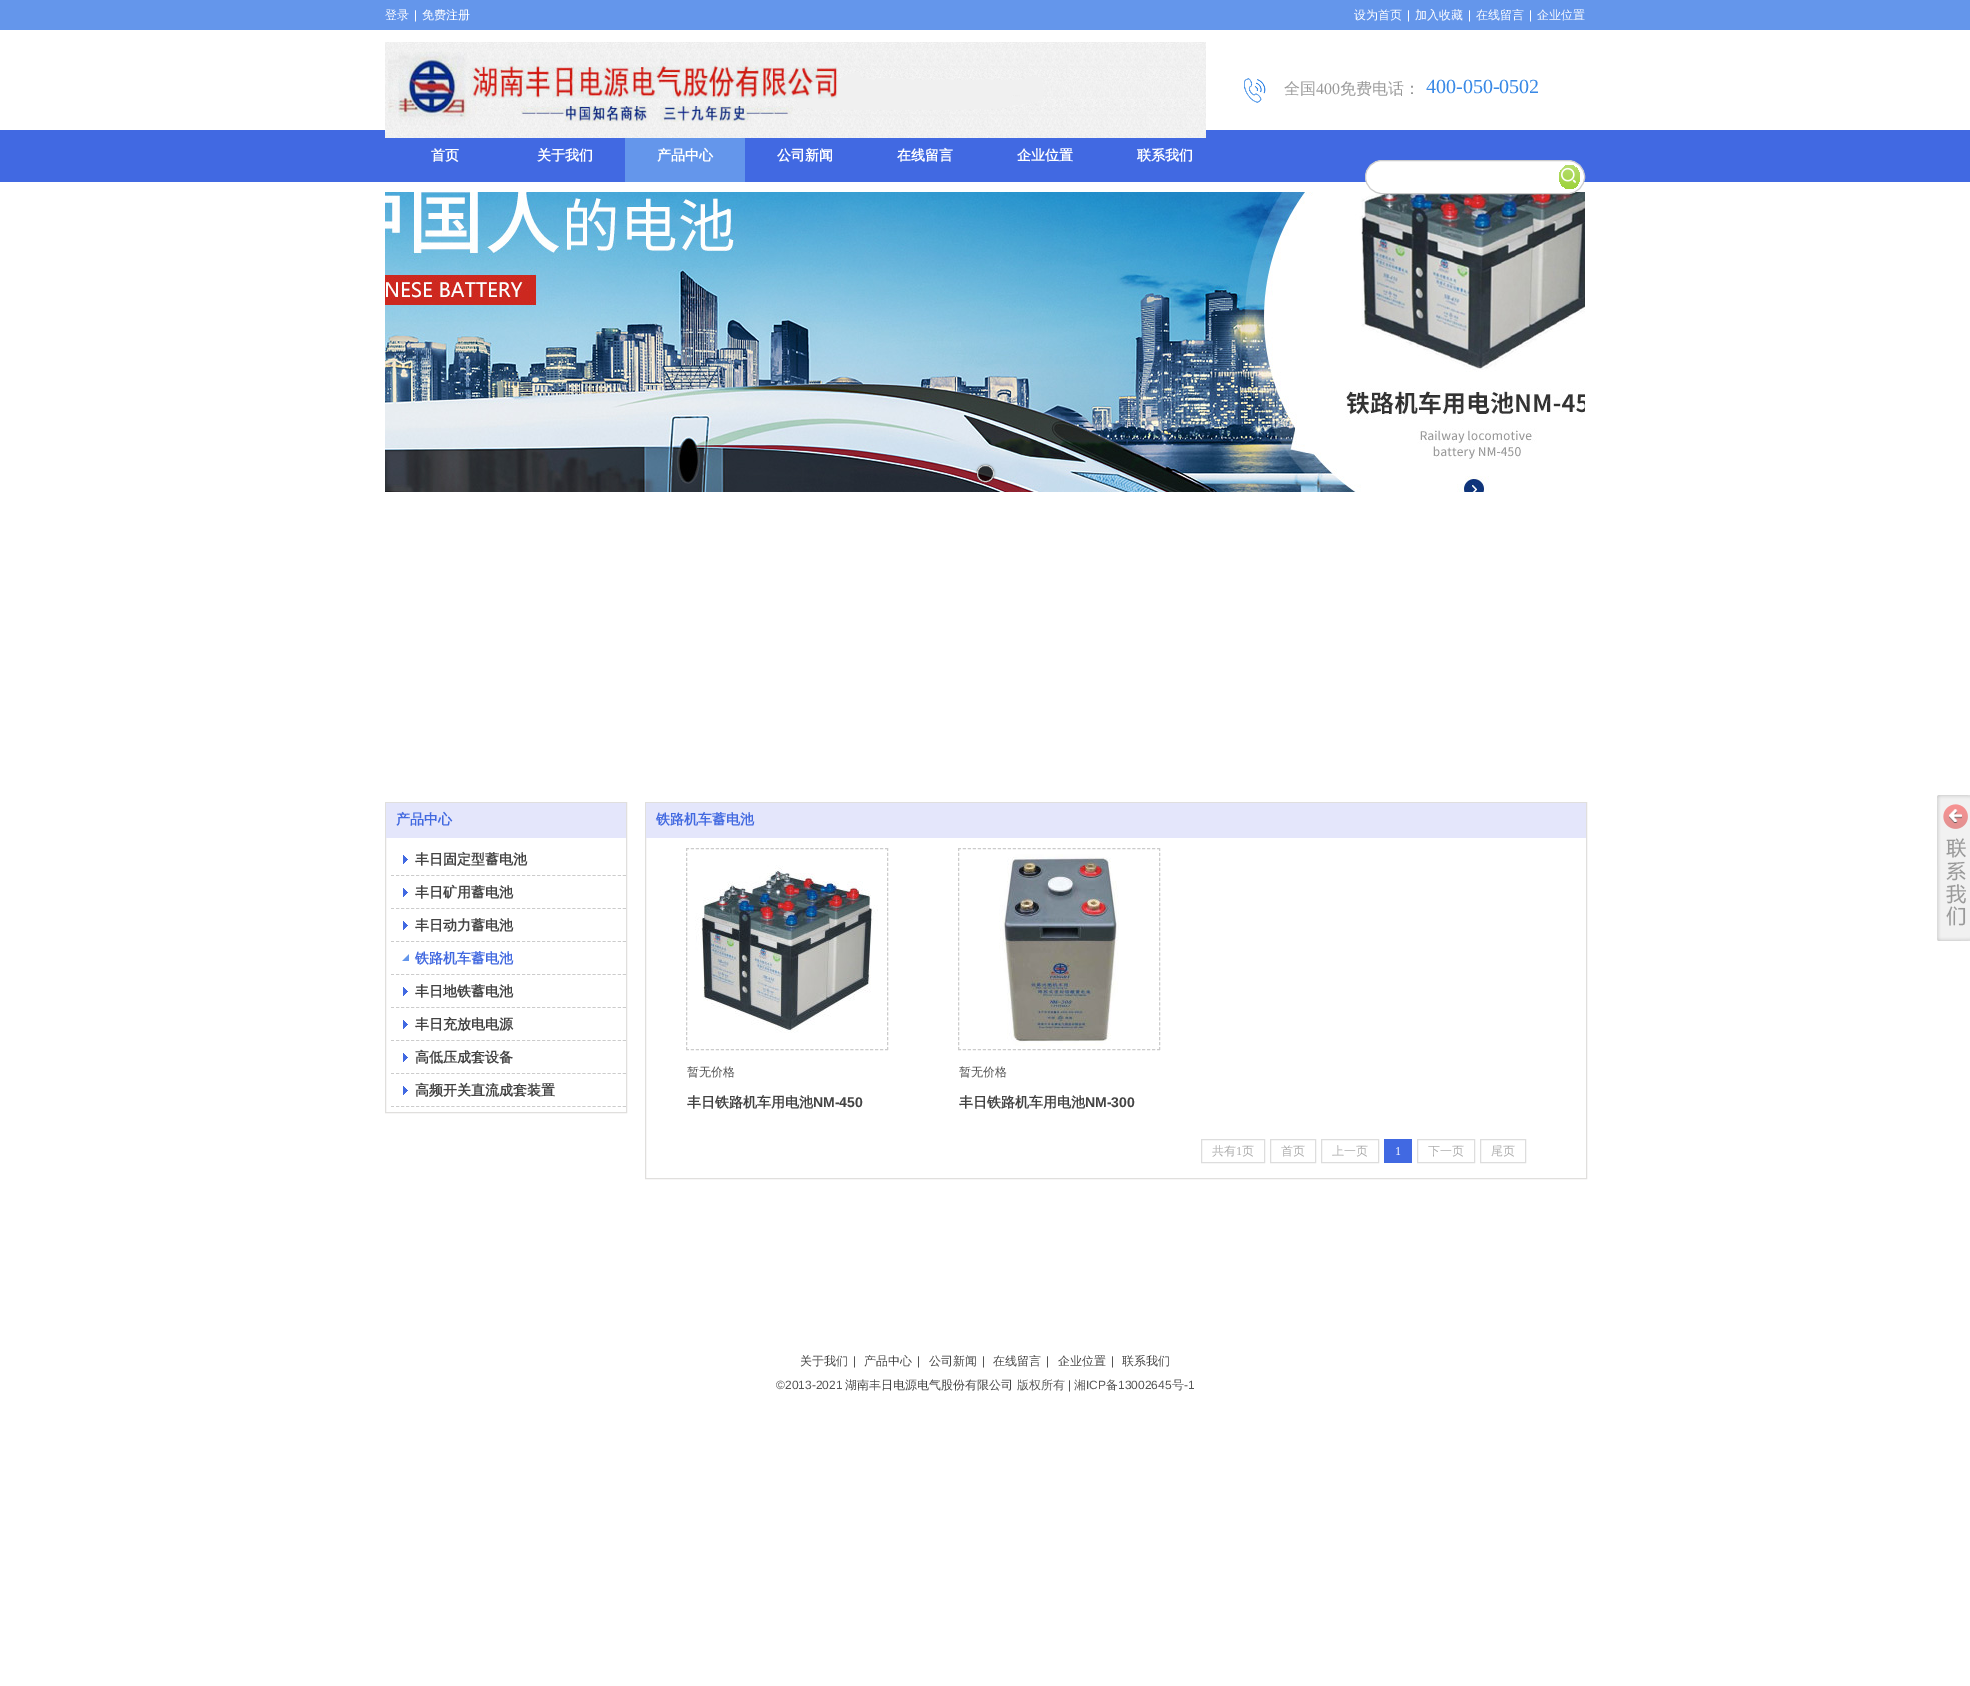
%!PS-Adobe-3.0
%%BoundingBox: 0 0 1970 1686
%%LanguageLevel: 3
%%Pages: 1
%%EndComments
%%BeginProlog
/setink { dup -16 bitshift 255 div exch dup -8 bitshift 255 and 255 div exch 255 and 255 div setrgbcolor } def
/usefont { [ exch dup neg 0 0 3 -1 roll 0 0 ] selectfont } def
/setalpha { dup .setfillconstantalpha .setstrokeconstantalpha } def
/rrect { 5 dict begin { /r /h /w /y /x } { exch def } forall
  x r add y moveto x w add y 2 copy h add r arct x w add y h add x 1 index r arct
  x y h add x y r arct x y 2 copy exch w add exch r arct closepath end } def
/softshadow { 12 dict begin { /a /b /q /h /w /y /x } { exch def } forall gsave /was 0 def
  9 -2 -9 { dup b mul 4 div /e exch def 1 sub .425 mul 2.718 exch exp 1 add a .99 .min exch div /now exch def
    1 1 now sub 1 was sub div sub setalpha /was now def
    w h .min e 2 mul add 0 gt { x e sub y e sub w e 2 mul add h e 2 mul add
      q e add b .6 mul add w h .min 2 div e add .min 0 .max rrect fill } if } for grestore end } def
/drawimage { 5 dict begin { /h /w /y /x /name } { exch def } forall
  gsave x y translate w h scale
  w h 8 [w 0 0 h 0 0] name (r) file false 3 colorimage grestore end } def
%%EndProlog
%%BeginSetup
<< /PageSize [1970 1686] /PageUsesTransparency true >> setpagedevice
%%EndSetup
%%Page: 1 1
0 .pushpdf14devicefilter
0 1686 translate 1 -1 scale
4 setmiterlimit
16#FFFFFF setink
0 0 1970 1686 rectfill
16#6496EB setink
0 0 1970 30 rectfill
/WenQuanYiZenHei-Medium 12 usefont
16#FFFFFF setink
385 19 moveto (登录) show
/LiberationSans-Regular 12 usefont
414 19 moveto (|) show
/WenQuanYiZenHei-Medium 12 usefont
422 19 moveto (免费注册) show
1354 19 moveto (设为首页) show
/LiberationSans-Regular 12 usefont
1407 19 moveto (|) show
/WenQuanYiZenHei-Medium 12 usefont
1415 19 moveto (加入收藏) show
/LiberationSans-Regular 12 usefont
1468 19 moveto (|) show
/WenQuanYiZenHei-Medium 12 usefont
1476 19 moveto (在线留言) show
/LiberationSans-Regular 12 usefont
1529 19 moveto (|) show
/WenQuanYiZenHei-Medium 12 usefont
1537 19 moveto (企业位置) show
16#4169E2 setink
0 130 1970 52 rectfill
/WenQuanYiZenHei-Bold 14 usefont
16#FFFFFF setink
431 160 moveto (首页) show
537 160 moveto (关于我们) show
16#6496EB setink
625 138 120 44 rectfill
16#FFFFFF setink
[
    [(产品中心) 657 160]
    [(公司新闻) 777 160]
    [(在线留言) 897 160]
    [(企业位置) 1017 160]
    [(联系我们) 1137 160]
] { aload pop moveto show } forall
(img1.raw) 385 192 1200 300 drawimage
gsave
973 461 moveto 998 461 lineto 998 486 lineto 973 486 lineto closepath 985 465 moveto 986 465 lineto 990.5 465 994 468.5 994 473 curveto 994 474 lineto 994 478.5 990.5 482 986 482 curveto 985 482 lineto 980.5 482 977 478.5 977 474 curveto 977 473 lineto 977 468.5 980.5 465 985 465 curveto closepath eoclip newpath
16#000000 setink
977 465 17 17 8 1 0.48 softshadow
grestore
0.8 setalpha
16#000000 setink
977 465 17 17 8 rrect fill
16#FFFFFF setink
977.5 465.5 16 16 7.5 rrect stroke
1 setalpha
(img2.raw) 385 42 821 96 drawimage
(img3.raw) 1244 78 22 25 drawimage
/WenQuanYiZenHei-Medium 16 usefont
16#999999 setink
1284 94 moveto (全国) show
/LiberationSerif-Regular 16 usefont
1316 94 moveto (400) show
/WenQuanYiZenHei-Medium 16 usefont
1340 94 moveto (免费电话：) show
/LiberationSerif-Regular 20 usefont
16#3989E6 setink
1426 93 moveto (400-050-0502) show
16#FFFFFF setink
1365.5 160.5 219 33 16.5 rrect gsave fill grestore
16#CCCCCC setink
stroke
gsave 1569.5 165 moveto 1575.5 165 1580 170.5 1580 177 curveto 1580 183.5 1575.5 189 1569.5 189 curveto 1563.5 189 1559 183.5 1559 177 curveto 1559 170.5 1563.5 165 1569.5 165 curveto closepath clip newpath
<< /ShadingType 2 /ColorSpace /DeviceRGB /Coords [1570 165 1570 189] /Extend [true true] /Function << /FunctionType 2 /Domain [0 1] /C0 [0.714 0.867 0.431] /C1 [0.616 0.824 0.231] /N 1 >> >> shfill grestore
(img4.raw) 1561 167 15 16 drawimage
16#E0DFDD setink
385.5 802.5 241 310 rectstroke
16#E4E6FB setink
386 803 240 35 rectfill
/WenQuanYiZenHei-Bold 14 usefont
16#4269E0 setink
396 824 moveto (产品中心) show
gsave
391 843 235 33 rectclip
16#CCCCCC setink
[3 2.04] 0 setdash
391 875.5 moveto 631 875.5 lineto stroke
grestore
(img5.raw) 403 855 5 9 drawimage
16#434343 setink
415 864 moveto (丰日固定型蓄电池) show
gsave
391 876 235 33 rectclip
16#CCCCCC setink
[3 2.04] 0 setdash
391 908.5 moveto 631 908.5 lineto stroke
grestore
(img5.raw) 403 888 5 9 drawimage
415 897 moveto (丰日矿用蓄电池) show
gsave
391 909 235 33 rectclip
16#CCCCCC setink
[3 2.04] 0 setdash
391 941.5 moveto 631 941.5 lineto stroke
grestore
(img5.raw) 403 921 5 9 drawimage
415 930 moveto (丰日动力蓄电池) show
gsave
391 942 235 33 rectclip
16#CCCCCC setink
[3 2.04] 0 setdash
391 974.5 moveto 631 974.5 lineto stroke
grestore
(img6.raw) 402 954 7 7 drawimage
16#4269E0 setink
415 963 moveto (铁路机车蓄电池) show
gsave
391 975 235 33 rectclip
16#CCCCCC setink
[3 2.04] 0 setdash
391 1007.5 moveto 631 1007.5 lineto stroke
grestore
(img5.raw) 403 987 5 9 drawimage
16#434343 setink
415 996 moveto (丰日地铁蓄电池) show
gsave
391 1008 235 33 rectclip
16#CCCCCC setink
[3 2.04] 0 setdash
391 1040.5 moveto 631 1040.5 lineto stroke
grestore
(img5.raw) 403 1020 5 9 drawimage
415 1029 moveto (丰日充放电电源) show
gsave
391 1041 235 33 rectclip
16#CCCCCC setink
[3 2.04] 0 setdash
391 1073.5 moveto 631 1073.5 lineto stroke
grestore
(img5.raw) 403 1053 5 9 drawimage
415 1062 moveto (高低压成套设备) show
gsave
391 1074 235 33 rectclip
16#CCCCCC setink
[3 2.04] 0 setdash
391 1106.5 moveto 631 1106.5 lineto stroke
grestore
(img5.raw) 403 1086 5 9 drawimage
415 1095 moveto (高频开关直流成套装置) show
16#E0DFDD setink
645.5 802.5 941 376 rectstroke
16#E4E6FB setink
646 803 940 35 rectfill
16#4269E0 setink
656 824 moveto (铁路机车蓄电池) show
16#CCCCCC setink
[3 1.98] 0 setdash
686 848.5 moveto 888 848.5 lineto stroke
887.5 848 moveto 887.5 1050 lineto stroke
686 1049.5 moveto 888 1049.5 lineto stroke
686.5 848 moveto 686.5 1050 lineto stroke
(img7.raw) 695 865 183 168 drawimage
/WenQuanYiZenHei-Medium 12 usefont
16#545454 setink
687 1076 moveto (暂无价格) show
/WenQuanYiZenHei-Bold 14 usefont
16#434343 setink
687 1107 moveto (丰日铁路机车用电池) show
/LiberationSans-Bold 14 usefont
813 1107 moveto (NM-450) show
16#CCCCCC setink
958 848.5 moveto 1160 848.5 lineto stroke
1159.5 848 moveto 1159.5 1050 lineto stroke
958 1049.5 moveto 1160 1049.5 lineto stroke
958.5 848 moveto 958.5 1050 lineto stroke
(img8.raw) 999 854 120 192 drawimage
/WenQuanYiZenHei-Medium 12 usefont
16#545454 setink
959 1076 moveto (暂无价格) show
/WenQuanYiZenHei-Bold 14 usefont
16#434343 setink
959 1107 moveto (丰日铁路机车用电池) show
/LiberationSans-Bold 14 usefont
1085 1107 moveto (NM-300) show
16#DDDDDD setink
[] 0 setdash
1201.5 1139.5 63 23 rectstroke
/WenQuanYiZenHei-Medium 12 usefont
16#AAAAAA setink
1212 1155 moveto (共有) show
/LiberationSerif-Regular 12 usefont
1236 1155 moveto (1) show
/WenQuanYiZenHei-Medium 12 usefont
1242 1155 moveto (页) show
16#DDDDDD setink
1270.5 1139.5 45 23 rectstroke
16#AAAAAA setink
1281 1155 moveto (首页) show
16#DDDDDD setink
1321.5 1139.5 57 23 rectstroke
16#AAAAAA setink
1332 1155 moveto (上一页) show
16#4169E2 setink
1384 1139 28 24 rectfill
/LiberationSerif-Regular 12 usefont
16#FFFFFF setink
1395 1155 moveto (1) show
16#DDDDDD setink
1417.5 1139.5 57 23 rectstroke
/WenQuanYiZenHei-Medium 12 usefont
16#AAAAAA setink
1428 1155 moveto (下一页) show
16#DDDDDD setink
1480.5 1139.5 45 23 rectstroke
16#AAAAAA setink
1491 1155 moveto (尾页) show
(img9.raw) 1937 795 33 146 drawimage
16#434343 setink
800 1365 moveto (关于我们) show
/LiberationSans-Regular 12 usefont
16#545454 setink
853 1365 moveto (|) show
/WenQuanYiZenHei-Medium 12 usefont
16#434343 setink
864 1365 moveto (产品中心) show
/LiberationSans-Regular 12 usefont
16#545454 setink
917 1365 moveto (|) show
/WenQuanYiZenHei-Medium 12 usefont
16#434343 setink
929 1365 moveto (公司新闻) show
/LiberationSans-Regular 12 usefont
16#545454 setink
982 1365 moveto (|) show
/WenQuanYiZenHei-Medium 12 usefont
16#434343 setink
993 1365 moveto (在线留言) show
/LiberationSans-Regular 12 usefont
16#545454 setink
1046 1365 moveto (|) show
/WenQuanYiZenHei-Medium 12 usefont
16#434343 setink
1058 1365 moveto (企业位置) show
/LiberationSans-Regular 12 usefont
16#545454 setink
1111 1365 moveto (|) show
/WenQuanYiZenHei-Medium 12 usefont
16#434343 setink
1122 1365 moveto (联系我们) show
/LiberationSans-Regular 12 usefont
16#545454 setink
776 1389 moveto (©2013-2021) show
/WenQuanYiZenHei-Medium 12 usefont
16#434343 setink
845 1389 moveto (湖南丰日电源电气股份有限公司) show
16#545454 setink
1017 1389 moveto (版权所有) show
/LiberationSans-Regular 12 usefont
1068 1389 moveto (|) show
/WenQuanYiZenHei-Medium 12 usefont
1074 1389 moveto (湘) show
/LiberationSans-Regular 12 usefont
1086 1389 moveto (ICP) show
/WenQuanYiZenHei-Medium 12 usefont
1106 1389 moveto (备) show
/LiberationSans-Regular 12 usefont
1118 1389 moveto (13002645) show
/WenQuanYiZenHei-Medium 12 usefont
1172 1389 moveto (号) show
/LiberationSans-Regular 12 usefont
1184 1389 moveto (-1) show
.poppdf14devicefilter showpage
%%EOF
